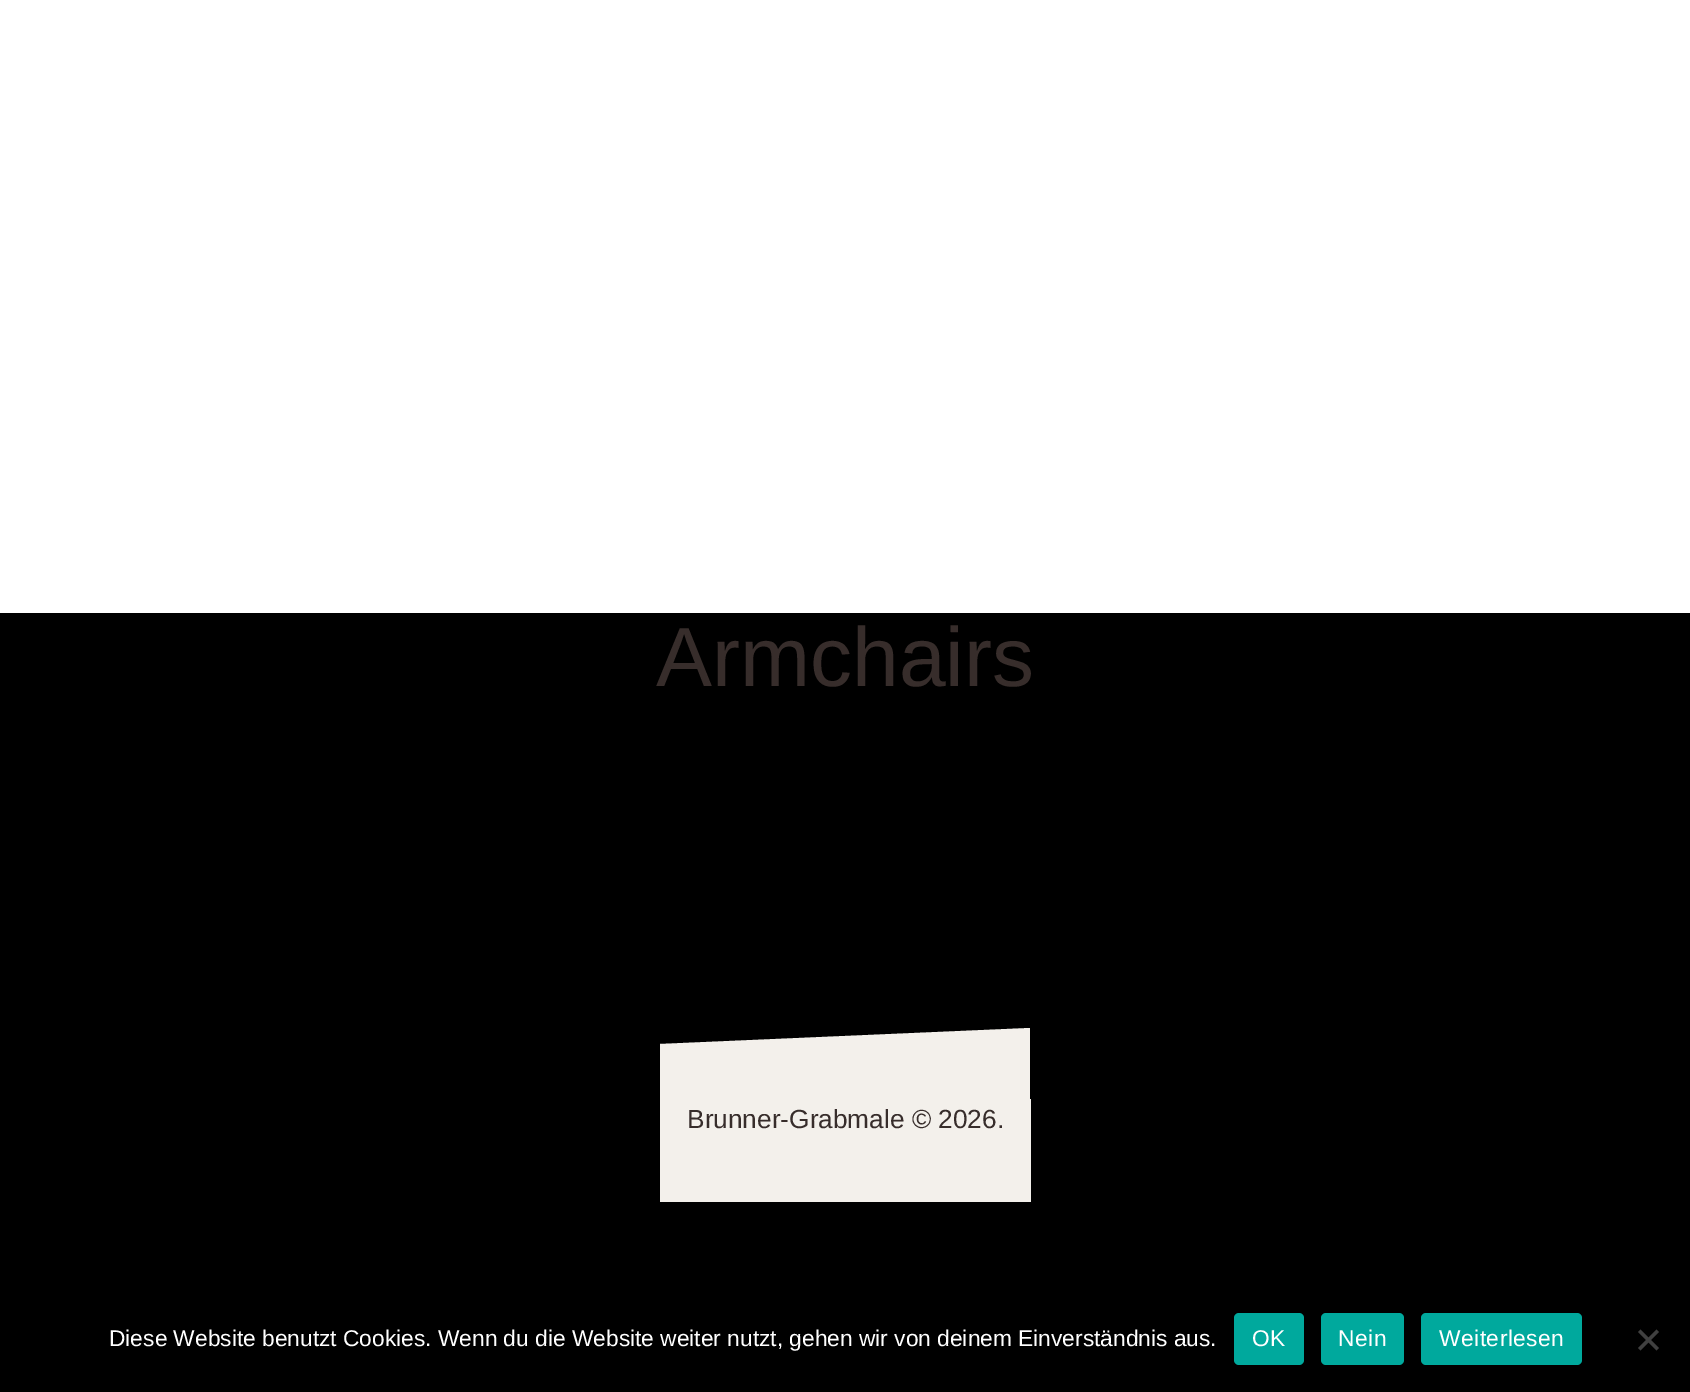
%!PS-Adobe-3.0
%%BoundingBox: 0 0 1690 1392
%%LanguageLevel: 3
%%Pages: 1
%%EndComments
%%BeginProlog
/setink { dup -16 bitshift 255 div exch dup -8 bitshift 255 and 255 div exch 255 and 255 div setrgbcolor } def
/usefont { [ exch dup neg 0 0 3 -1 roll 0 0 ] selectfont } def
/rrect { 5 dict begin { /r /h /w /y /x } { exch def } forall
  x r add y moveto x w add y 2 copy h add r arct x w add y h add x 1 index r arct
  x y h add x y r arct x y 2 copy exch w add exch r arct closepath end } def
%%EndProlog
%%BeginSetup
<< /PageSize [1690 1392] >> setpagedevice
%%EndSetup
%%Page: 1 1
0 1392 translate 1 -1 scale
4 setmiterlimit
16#000000 setink
0 0 1690 1392 rectfill
16#FFFFFF setink
0 0 1690 613 rectfill
/LiberationSans-Regular 84 usefont
16#372D2B setink
656 686 moveto (Armchairs) show
16#F3F0EB setink
1030 1099 1 103 rectfill
gsave
0 0 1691 1202 rectclip
660 1044 moveto 1030 1028 lineto 1030 1204 lineto 660 1220 lineto closepath fill
grestore
/LiberationSans-Regular 26.25 usefont
16#372D2B setink
687 1128 moveto (Brunner-Grabmale © 2026.) show
/LiberationSans-Regular 22.75 usefont
16#FFFFFF setink
109 1346 moveto (Diese Website benutzt Cookies. Wenn du die Website weiter nutzt, gehen wir von deinem Einverständnis aus.) show
16#00A99D setink
1234 1313 70 52 5 rrect fill
16#FFFFFF setink
1252 1346 moveto 0.5 0 (OK) ashow
16#00A99D setink
1321 1313 83 52 5 rrect fill
16#FFFFFF setink
1338 1346 moveto 0.5 0 (Nein) ashow
16#00A99D setink
1421 1313 161 52 5 rrect fill
16#FFFFFF setink
1439 1346 moveto 0.5 0 (Weiterlesen) ashow
16#404040 setink
1656.5 1329.5 moveto 1659 1332 lineto 1640.5 1350.5 lineto 1638 1348 lineto closepath fill
1638 1332 moveto 1640.5 1329.5 lineto 1659 1348 lineto 1656.5 1350.5 lineto closepath fill
showpage
%%EOF
